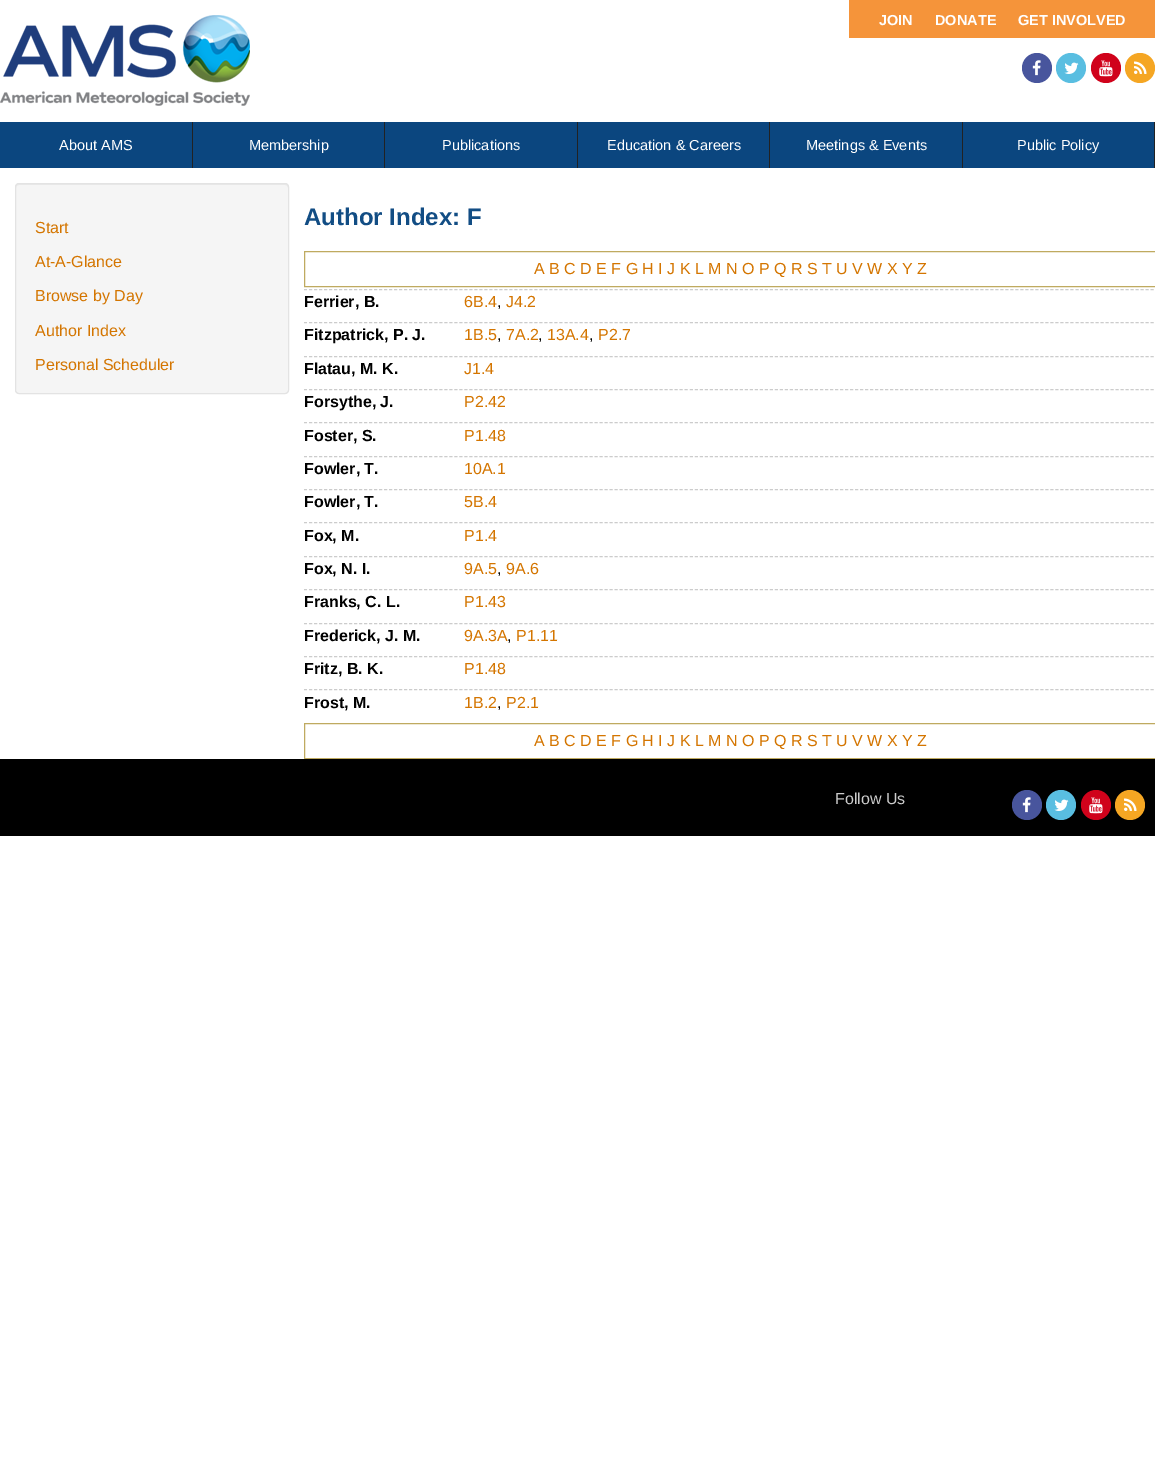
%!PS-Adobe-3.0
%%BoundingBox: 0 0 1155 1480
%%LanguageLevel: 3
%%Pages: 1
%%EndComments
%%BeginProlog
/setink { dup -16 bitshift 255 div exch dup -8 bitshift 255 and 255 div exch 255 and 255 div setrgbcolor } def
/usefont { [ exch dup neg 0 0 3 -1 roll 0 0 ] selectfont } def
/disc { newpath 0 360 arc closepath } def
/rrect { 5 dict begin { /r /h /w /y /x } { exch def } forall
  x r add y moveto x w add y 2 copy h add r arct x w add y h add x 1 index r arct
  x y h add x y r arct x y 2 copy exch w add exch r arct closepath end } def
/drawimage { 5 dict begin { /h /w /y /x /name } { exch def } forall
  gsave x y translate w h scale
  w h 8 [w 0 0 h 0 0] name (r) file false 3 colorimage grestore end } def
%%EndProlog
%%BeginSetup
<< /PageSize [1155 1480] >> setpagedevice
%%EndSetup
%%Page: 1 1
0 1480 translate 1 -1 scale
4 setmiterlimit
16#FFFFFF setink
0 0 1155 1480 rectfill
(img1.raw) 0 15 250 91 drawimage
16#F5943A setink
849 0 306 38 rectfill
/LiberationSans-Bold 14.5 usefont
16#FFFFFF setink
[
    [(JOIN) 879 25]
    [(DONATE) 935 25]
    [(GET INVOLVED) 1018 25]
] { aload pop moveto show } forall
16#48559D setink
1037 68 15 disc fill
(img2.raw) 1032 60 9 16 drawimage
16#59BEE1 setink
1071 68 15 disc fill
(img3.raw) 1064 62 15 12 drawimage
16#D0021B setink
1106 68 15 disc fill
(img4.raw) 1099 60 14 17 drawimage
16#F5A623 setink
1140 68 15 disc fill
(img5.raw) 1134 61 13 13 drawimage
16#0B467F setink
0 122 1154 46 rectfill
16#222222 setink
192 122 1 46 rectfill
/LiberationSans-Regular 14.5 usefont
16#FFFFFF setink
59 150 moveto (About AMS) show
16#222222 setink
384 122 1 46 rectfill
16#FFFFFF setink
249 150 moveto (Membership) show
16#222222 setink
577 122 1 46 rectfill
16#FFFFFF setink
442 150 moveto (Publications) show
16#222222 setink
769 122 1 46 rectfill
16#FFFFFF setink
607 150 moveto (Education & Careers) show
16#222222 setink
962 122 1 46 rectfill
16#FFFFFF setink
806 150 moveto (Meetings & Events) show
16#222222 setink
1154 122 1 46 rectfill
16#FFFFFF setink
1017 150 moveto (Public Policy) show
16#F5F5F5 setink
15 183 274 211 4 rrect fill
16#E9E9E9 setink
19 185 moveto 285 185 lineto 287 185 288 186 288 188 curveto 288 187 lineto 288 185 287 184 285 184 curveto 19 184 lineto 17 184 16 185 16 187 curveto 16 188 lineto 16 186 17 185 19 185 curveto closepath fill
16#E3E3E3 setink
15.5 183.5 273 210 3.5 rrect stroke
/LiberationSans-Regular 16 usefont
16#D47500 setink
[
    [(Start) 35 233]
    [(At-A-Glance) 35 267]
    [(Browse by Day) 35 301]
    [(Author Index) 35 336]
    [(Personal Scheduler) 35 370]
] { aload pop moveto show } forall
/LiberationSans-Bold 24 usefont
16#124D84 setink
304 225 moveto (Author Index: F) show
16#BFAA60 setink
304.5 251.5 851 35 rectstroke
/LiberationSans-Regular 16 usefont
16#D47500 setink
534 274 moveto (A B C D E F G H I J K L M N O P Q R S T U V W X Y Z) show
16#CCCCCC setink
[3 2.01] 0 setdash
304 289.5 moveto 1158 289.5 lineto stroke
/LiberationSans-Bold 16 usefont
16#000000 setink
304 307 moveto (Ferrier, B.) show
/LiberationSans-Regular 16 usefont
16#D47500 setink
464 307 moveto (6B.4) show
16#000000 setink
497 307 moveto (,) show
16#D47500 setink
506 307 moveto (J4.2) show
16#CCCCCC setink
304 322.5 moveto 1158 322.5 lineto stroke
/LiberationSans-Bold 16 usefont
16#000000 setink
304 340 moveto (Fitzpatrick, P. J.) show
/LiberationSans-Regular 16 usefont
16#D47500 setink
464 340 moveto (1B.5) show
16#000000 setink
497 340 moveto (,) show
16#D47500 setink
506 340 moveto (7A.2) show
16#000000 setink
538 340 moveto (,) show
16#D47500 setink
547 340 moveto (13A.4) show
16#000000 setink
589 340 moveto (,) show
16#D47500 setink
598 340 moveto (P2.7) show
16#CCCCCC setink
304 356.5 moveto 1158 356.5 lineto stroke
/LiberationSans-Bold 16 usefont
16#000000 setink
304 374 moveto (Flatau, M. K.) show
/LiberationSans-Regular 16 usefont
16#D47500 setink
464 374 moveto (J1.4) show
16#CCCCCC setink
304 389.5 moveto 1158 389.5 lineto stroke
/LiberationSans-Bold 16 usefont
16#000000 setink
304 407 moveto (Forsythe, J.) show
/LiberationSans-Regular 16 usefont
16#D47500 setink
464 407 moveto (P2.42) show
16#CCCCCC setink
304 422.5 moveto 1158 422.5 lineto stroke
/LiberationSans-Bold 16 usefont
16#000000 setink
304 441 moveto (Foster, S.) show
/LiberationSans-Regular 16 usefont
16#D47500 setink
464 441 moveto (P1.48) show
16#CCCCCC setink
304 456.5 moveto 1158 456.5 lineto stroke
/LiberationSans-Bold 16 usefont
16#000000 setink
304 474 moveto (Fowler, T.) show
/LiberationSans-Regular 16 usefont
16#D47500 setink
464 474 moveto (10A.1) show
16#CCCCCC setink
304 489.5 moveto 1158 489.5 lineto stroke
/LiberationSans-Bold 16 usefont
16#000000 setink
304 507 moveto (Fowler, T.) show
/LiberationSans-Regular 16 usefont
16#D47500 setink
464 507 moveto (5B.4) show
16#CCCCCC setink
304 522.5 moveto 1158 522.5 lineto stroke
/LiberationSans-Bold 16 usefont
16#000000 setink
304 541 moveto (Fox, M.) show
/LiberationSans-Regular 16 usefont
16#D47500 setink
464 541 moveto (P1.4) show
16#CCCCCC setink
304 556.5 moveto 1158 556.5 lineto stroke
/LiberationSans-Bold 16 usefont
16#000000 setink
304 574 moveto (Fox, N. I.) show
/LiberationSans-Regular 16 usefont
16#D47500 setink
464 574 moveto (9A.5) show
16#000000 setink
497 574 moveto (,) show
16#D47500 setink
506 574 moveto (9A.6) show
16#CCCCCC setink
304 589.5 moveto 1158 589.5 lineto stroke
/LiberationSans-Bold 16 usefont
16#000000 setink
304 607 moveto (Franks, C. L.) show
/LiberationSans-Regular 16 usefont
16#D47500 setink
464 607 moveto (P1.43) show
16#CCCCCC setink
304 623.5 moveto 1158 623.5 lineto stroke
/LiberationSans-Bold 16 usefont
16#000000 setink
304 641 moveto (Frederick, J. M.) show
/LiberationSans-Regular 16 usefont
16#D47500 setink
464 641 moveto (9A.3A) show
516 641 moveto (P1.11) show
16#000000 setink
507 641 moveto (,) show
16#CCCCCC setink
304 656.5 moveto 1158 656.5 lineto stroke
/LiberationSans-Bold 16 usefont
16#000000 setink
304 674 moveto (Fritz, B. K.) show
/LiberationSans-Regular 16 usefont
16#D47500 setink
464 674 moveto (P1.48) show
16#CCCCCC setink
304 689.5 moveto 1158 689.5 lineto stroke
/LiberationSans-Bold 16 usefont
16#000000 setink
304 708 moveto (Frost, M.) show
/LiberationSans-Regular 16 usefont
16#D47500 setink
464 708 moveto (1B.2) show
506 708 moveto (P2.1) show
16#000000 setink
497 708 moveto (,) show
16#BFAA60 setink
[] 0 setdash
304.5 723.5 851 35 rectstroke
16#D47500 setink
534 746 moveto (A B C D E F G H I J K L M N O P Q R S T U V W X Y Z) show
16#000000 setink
0 759 1155 77 rectfill
16#CCCCCC setink
835 804 moveto (Follow Us) show
16#48559D setink
1027 805 15 disc fill
(img2.raw) 1022 797 9 16 drawimage
16#59BEE1 setink
1061 805 15 disc fill
(img3.raw) 1054 799 15 12 drawimage
16#D0021B setink
1096 805 15 disc fill
(img4.raw) 1089 797 14 17 drawimage
16#F5A623 setink
1130 805 15 disc fill
(img5.raw) 1124 798 13 13 drawimage
showpage
%%EOF
